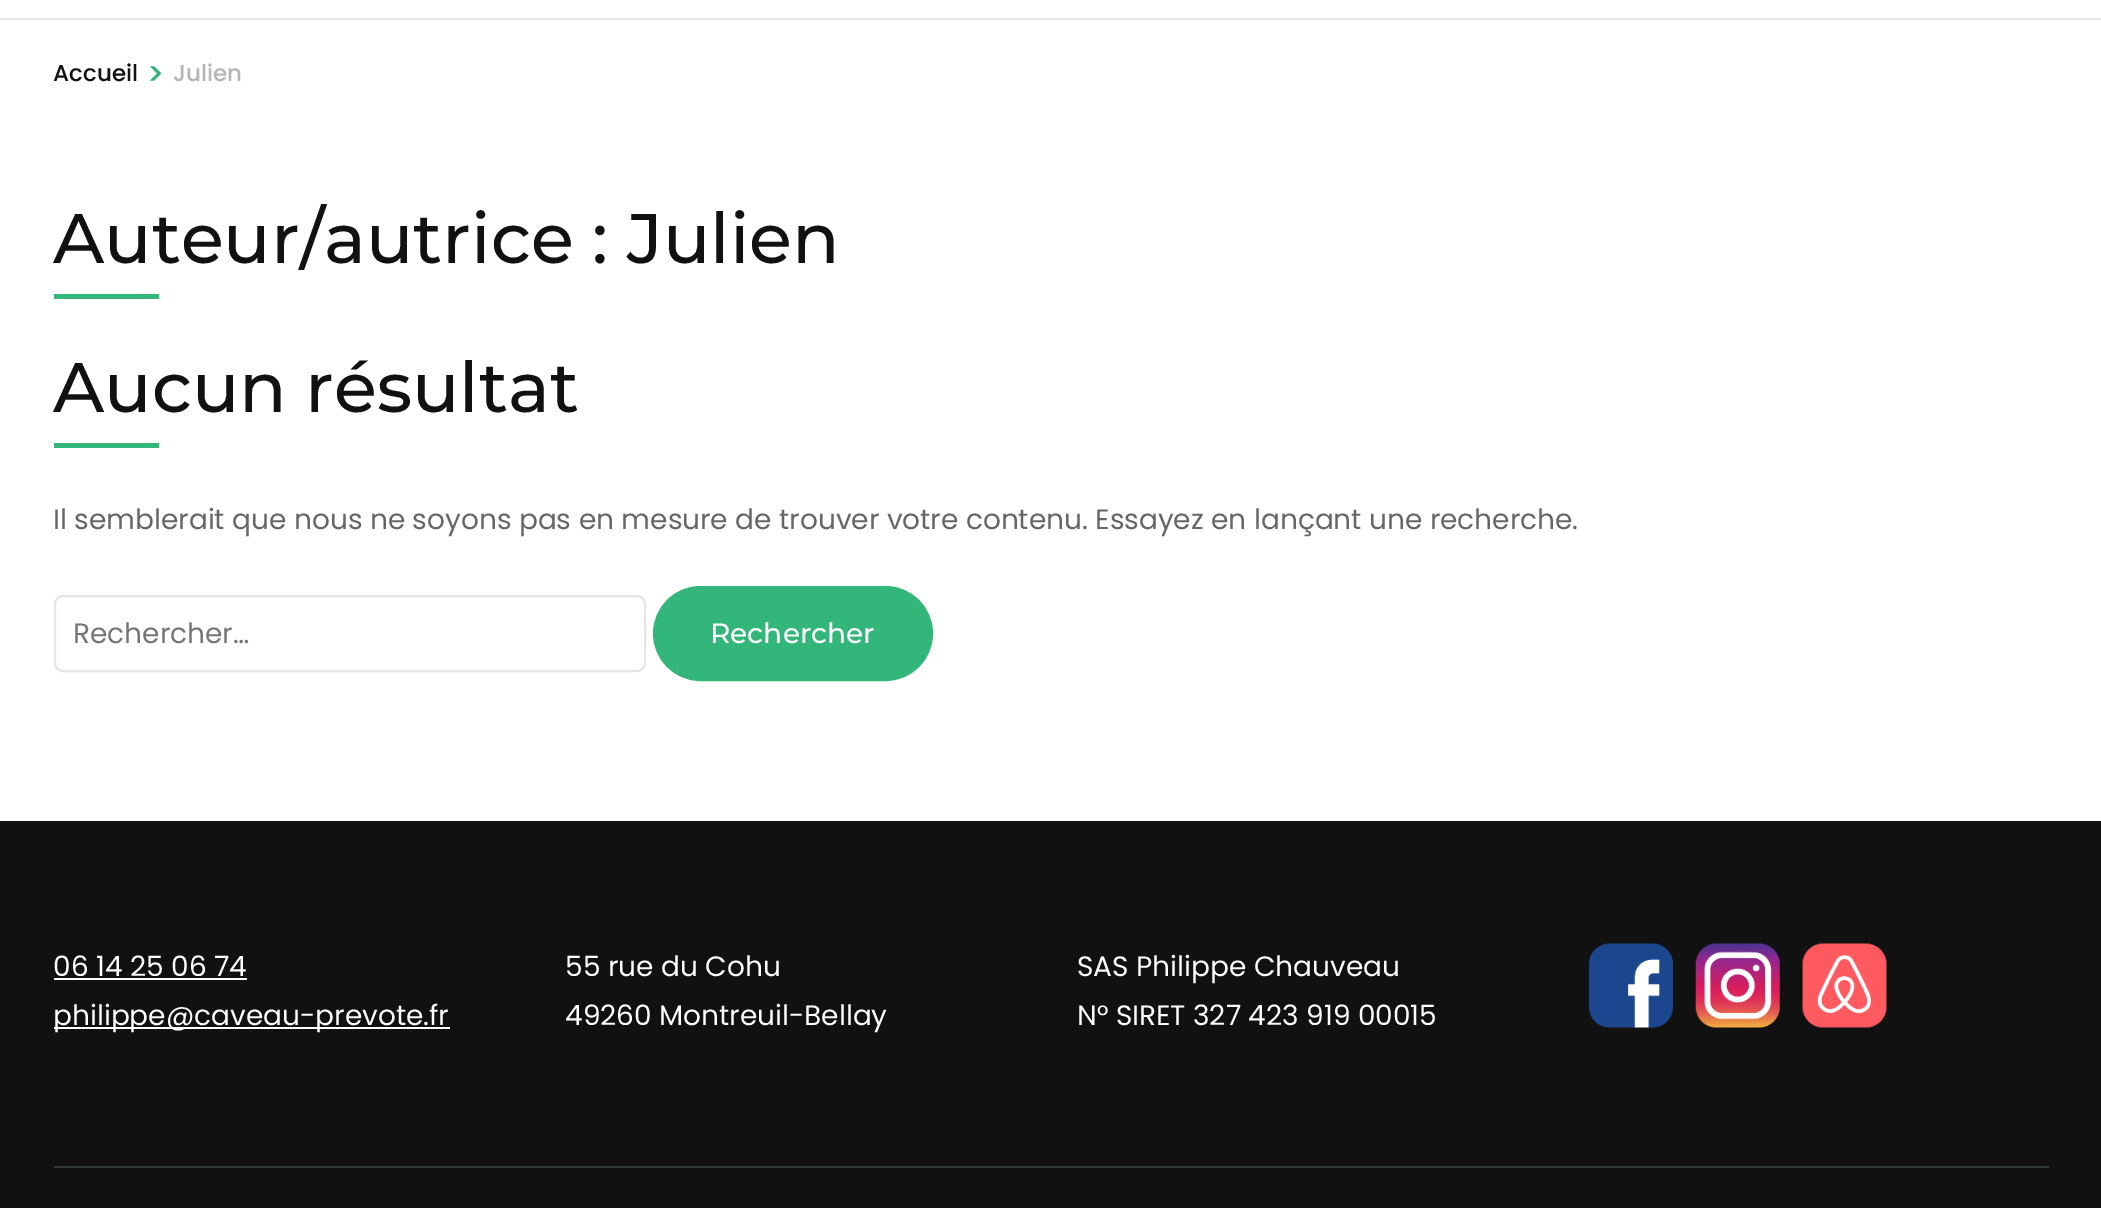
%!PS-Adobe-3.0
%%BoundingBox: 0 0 2101 1208
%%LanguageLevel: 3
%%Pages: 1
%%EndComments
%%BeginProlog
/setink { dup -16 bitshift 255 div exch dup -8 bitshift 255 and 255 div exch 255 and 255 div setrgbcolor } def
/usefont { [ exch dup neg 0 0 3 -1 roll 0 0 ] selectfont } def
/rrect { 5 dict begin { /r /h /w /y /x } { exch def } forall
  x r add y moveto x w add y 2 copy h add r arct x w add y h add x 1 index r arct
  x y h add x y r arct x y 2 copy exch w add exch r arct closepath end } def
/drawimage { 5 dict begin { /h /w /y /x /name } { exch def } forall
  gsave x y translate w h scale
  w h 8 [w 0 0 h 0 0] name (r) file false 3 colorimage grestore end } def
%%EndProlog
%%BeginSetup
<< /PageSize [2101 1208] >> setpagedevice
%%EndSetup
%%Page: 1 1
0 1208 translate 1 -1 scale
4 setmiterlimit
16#FFFFFF setink
0 0 2101 1208 rectfill
16#E5E5E5 setink
0 18 2101 2 rectfill
/Poppins-Medium 23 usefont
16#111111 setink
53 81 moveto (Accueil) show
/Poppins-Medium 32 usefont
16#32B67A setink
146 85 moveto (>) show
/Poppins-Medium 23 usefont
16#B5B5B5 setink
173 81 moveto (Julien) show
/Montserrat-Medium 70 usefont
16#111111 setink
53 263 moveto (Auteur/autrice : Julien) show
16#32B67A setink
54 294 105 5 rectfill
16#111111 setink
53 412 moveto (Aucun résultat) show
16#32B67A setink
54 443 105 5 rectfill
/Poppins-Regular 28 usefont
16#666666 setink
53 529 moveto (Il semblerait que nous ne soyons pas en mesure de trouver votre contenu. Essayez en lançant une recherche.) show
16#E5E5E5 setink
2 setlinewidth
55 596 590 75 8 rrect stroke
16#757575 setink
73 643 moveto (Rechercher…) show
16#32B67A setink
654 587 278 93 46.5 rrect gsave fill grestore
stroke
/Montserrat-Medium 28 usefont
16#FFFFFF setink
710 643 moveto (Rechercher) show
16#111111 setink
0 821 2101 387 rectfill
16#33383A setink
54 1166 1995 2 rectfill
/Poppins-Regular 28 usefont
16#FFFFFF setink
53 976 moveto (06 14 25 06 74) show
54 978 193 2 rectfill
54 1027 396 2 rectfill
[
    [(philippe@caveau-prevote.fr) 53 1025]
    [(55 rue du Cohu) 565 976]
    [(49260 Montreuil-Bellay) 565 1025]
    [(SAS Philippe Chauveau) 1077 976]
    [(N° SIRET 327 423 919 00015) 1077 1025]
] { aload pop moveto show } forall
(img1.raw) 1589 943 84 85 drawimage
(img2.raw) 1695 943 85 85 drawimage
(img3.raw) 1802 943 85 85 drawimage
showpage
%%EOF
